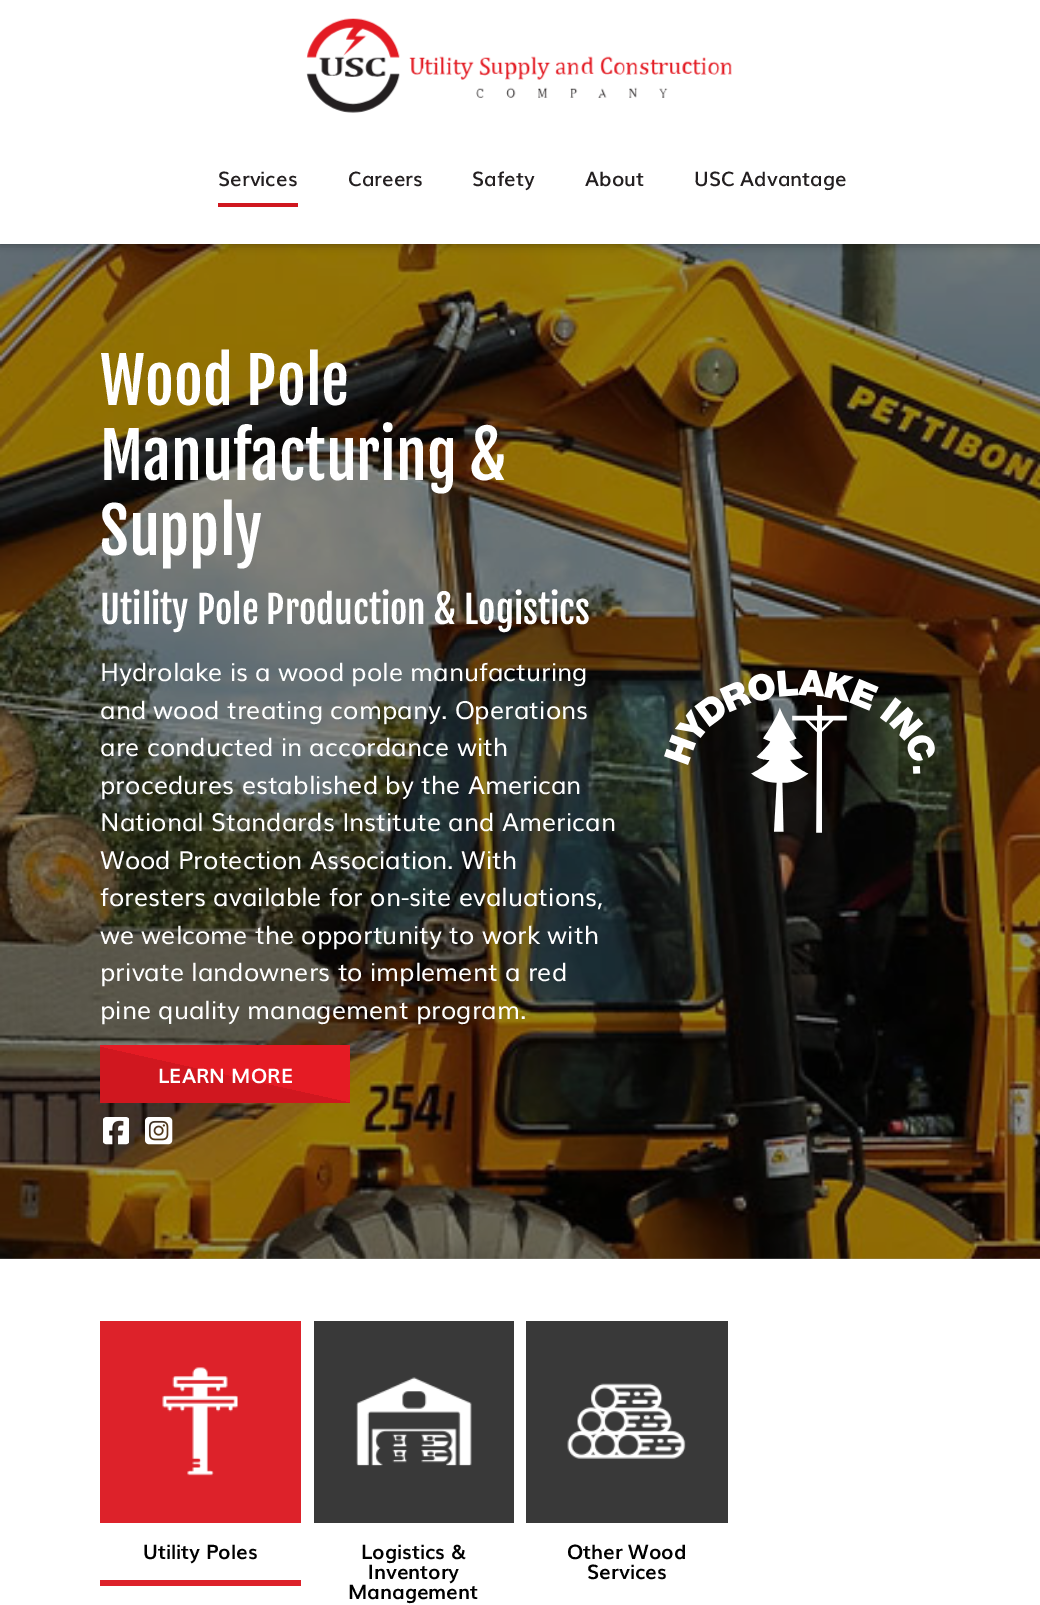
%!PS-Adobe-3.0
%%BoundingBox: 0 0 1040 1605
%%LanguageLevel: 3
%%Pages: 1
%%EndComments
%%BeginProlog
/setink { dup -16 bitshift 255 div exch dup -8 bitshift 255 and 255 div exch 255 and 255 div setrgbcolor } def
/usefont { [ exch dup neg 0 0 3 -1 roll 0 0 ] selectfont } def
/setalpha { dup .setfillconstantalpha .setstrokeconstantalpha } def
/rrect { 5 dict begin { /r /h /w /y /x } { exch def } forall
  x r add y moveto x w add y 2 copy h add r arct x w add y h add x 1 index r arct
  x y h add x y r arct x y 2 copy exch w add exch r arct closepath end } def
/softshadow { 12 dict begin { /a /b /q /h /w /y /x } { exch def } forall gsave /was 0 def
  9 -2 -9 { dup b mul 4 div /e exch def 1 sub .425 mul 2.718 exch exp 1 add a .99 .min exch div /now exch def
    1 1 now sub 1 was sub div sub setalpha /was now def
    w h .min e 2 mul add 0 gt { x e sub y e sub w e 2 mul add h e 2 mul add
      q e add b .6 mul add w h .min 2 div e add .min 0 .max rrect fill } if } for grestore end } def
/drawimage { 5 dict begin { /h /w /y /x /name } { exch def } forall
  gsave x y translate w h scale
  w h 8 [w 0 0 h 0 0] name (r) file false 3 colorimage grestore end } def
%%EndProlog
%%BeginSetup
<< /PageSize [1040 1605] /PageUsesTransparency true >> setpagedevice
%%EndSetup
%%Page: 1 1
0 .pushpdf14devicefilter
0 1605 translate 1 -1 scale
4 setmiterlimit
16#FFFFFF setink
0 0 1040 1605 rectfill
(img2.raw) 0 244 1040 1015 drawimage
16#000000 setink
0 0 1040 244 0 5 0.4 softshadow
16#FFFFFF setink
0 0 1040 244 rectfill
(img1.raw) 306 18 426 95 drawimage
/Muli-SemiBold 20 usefont
16#231F20 setink
218 186 moveto (Services) show
16#D0171F setink
218 203 80 4 rectfill
16#231F20 setink
[
    [(Careers) 348 186]
    [(Safety) 472 186]
    [(About) 585 186]
    [(USC Advantage) 694 186]
] { aload pop moveto show } forall
/FjallaOne-Regular 62.5 usefont
16#FFFFFF setink
[
    [(Wood Pole) 100 405]
    [(Manufacturing &) 100 480]
    [(Supply) 100 555]
] { aload pop moveto show } forall
/FjallaOne-Regular 37.5 usefont
100 624 moveto (Utility Pole Production & Logistics) show
/Muli-Regular 25 usefont
[
    [(Hydrolake is a wood pole manufacturing) 100 681]
    [(and wood treating company. Operations) 100 719]
    [(are conducted in accordance with) 100 756]
    [(procedures established by the American) 100 794]
    [(National Standards Institute and American) 100 831]
    [(Wood Protection Association. With) 100 869]
    [(foresters available for on-site evaluations,) 100 906]
    [(we welcome the opportunity to work with) 100 944]
    [(private landowners to implement a red) 100 981]
    [(pine quality management program.) 100 1019]
] { aload pop moveto show } forall
gsave 100 1045 moveto 350 1045 lineto 350 1103 lineto 100 1103 lineto closepath clip newpath
<< /ShadingType 2 /ColorSpace /DeviceRGB /Coords [326 1210 374 995] /Extend [true true] /Function << /FunctionType 3 /Domain [0 1] /Functions [<< /FunctionType 2 /Domain [0 1] /C0 [0.816 0.09 0.122] /C1 [0.816 0.09 0.122] /N 1 >> << /FunctionType 2 /Domain [0 1] /C0 [0.898 0.106 0.141] /C1 [0.898 0.106 0.141] /N 1 >>] /Bounds [0.5] /Encode [0 1 0 1] >> >> shfill grestore
/Muli-Bold 20 usefont
158 1083 moveto (LEARN MORE) show
(img3.raw) 103 1117 26 28 drawimage
(img4.raw) 145 1117 28 28 drawimage
(img5.raw) 664 669 271 164 drawimage
16#DD222A setink
100 1321 201 202 rectfill
(img6.raw) 162 1367 76 109 drawimage
16#000000 setink
143 1559 moveto (Utility Poles) show
16#DD222A setink
100 1580 201 6 rectfill
16#393939 setink
314 1321 200 202 rectfill
(img7.raw) 356 1377 116 89 drawimage
16#000000 setink
[
    [(Logistics &) 361 1559]
    [(Inventory) 368 1579]
    [(Management) 348 1599]
] { aload pop moveto show } forall
16#393939 setink
526 1321 202 202 rectfill
(img8.raw) 567 1383 119 76 drawimage
16#000000 setink
567 1559 moveto (Other Wood) show
587 1579 moveto (Services) show
.poppdf14devicefilter showpage
%%EOF
